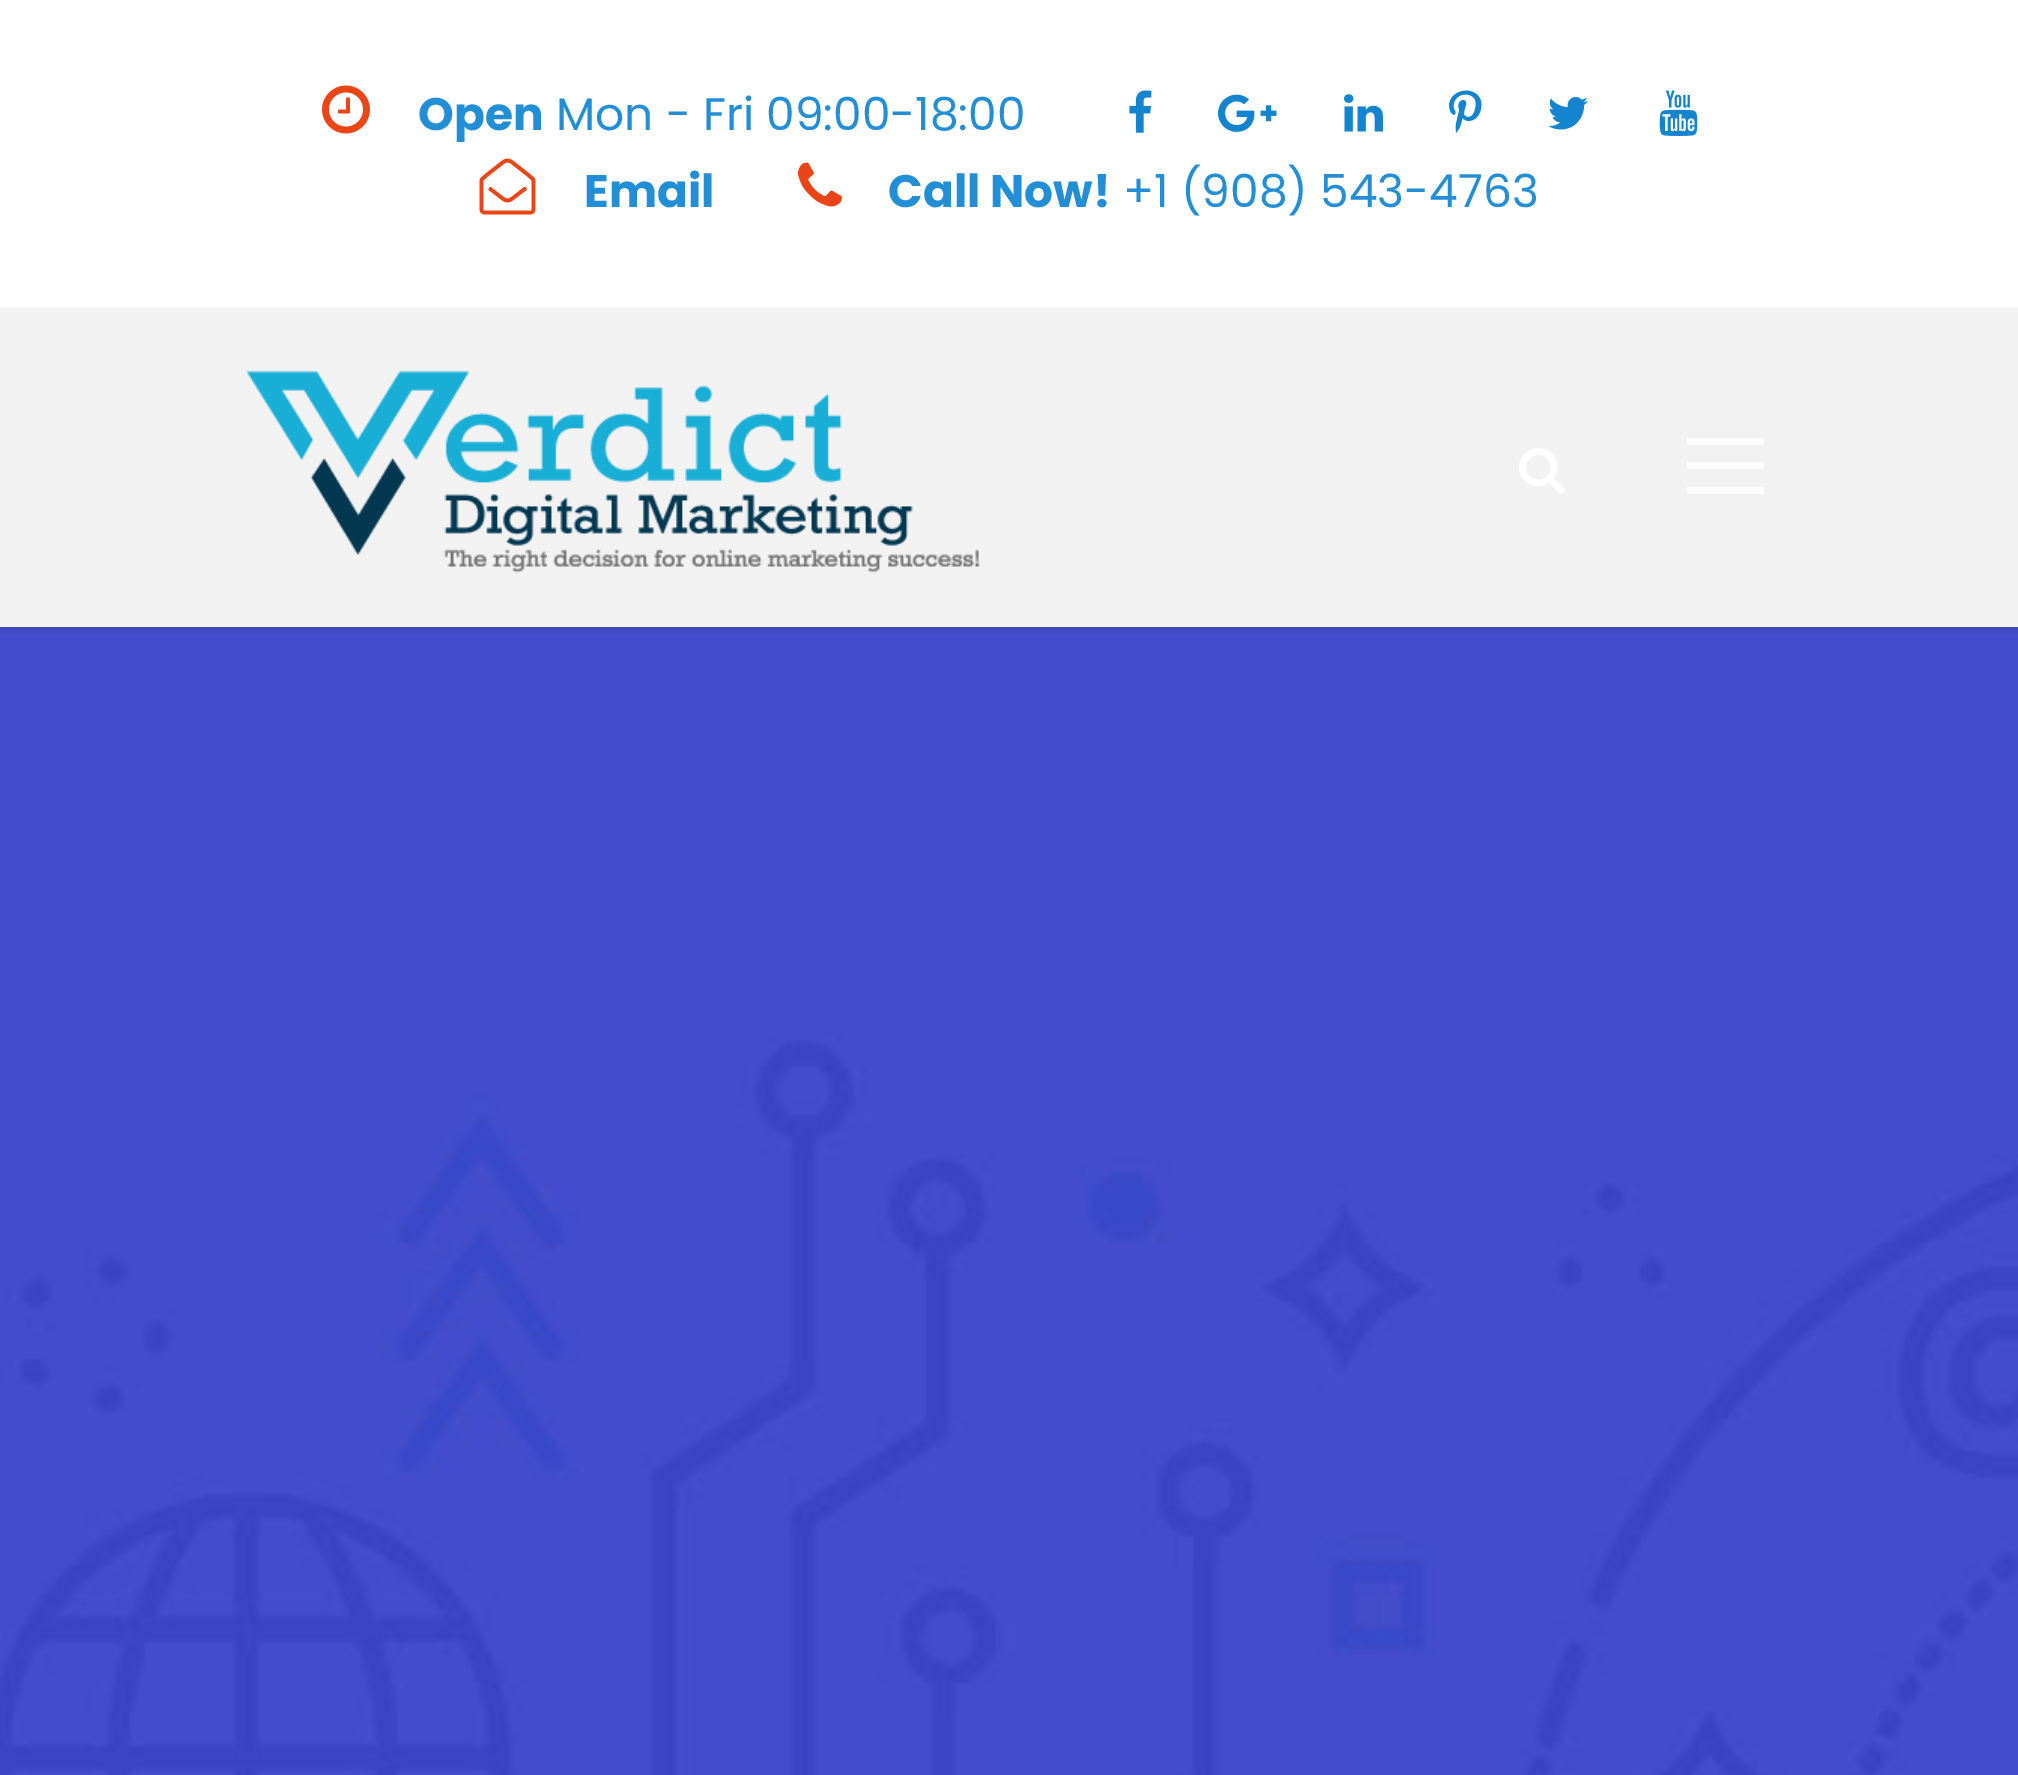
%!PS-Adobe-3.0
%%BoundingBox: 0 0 2018 1775
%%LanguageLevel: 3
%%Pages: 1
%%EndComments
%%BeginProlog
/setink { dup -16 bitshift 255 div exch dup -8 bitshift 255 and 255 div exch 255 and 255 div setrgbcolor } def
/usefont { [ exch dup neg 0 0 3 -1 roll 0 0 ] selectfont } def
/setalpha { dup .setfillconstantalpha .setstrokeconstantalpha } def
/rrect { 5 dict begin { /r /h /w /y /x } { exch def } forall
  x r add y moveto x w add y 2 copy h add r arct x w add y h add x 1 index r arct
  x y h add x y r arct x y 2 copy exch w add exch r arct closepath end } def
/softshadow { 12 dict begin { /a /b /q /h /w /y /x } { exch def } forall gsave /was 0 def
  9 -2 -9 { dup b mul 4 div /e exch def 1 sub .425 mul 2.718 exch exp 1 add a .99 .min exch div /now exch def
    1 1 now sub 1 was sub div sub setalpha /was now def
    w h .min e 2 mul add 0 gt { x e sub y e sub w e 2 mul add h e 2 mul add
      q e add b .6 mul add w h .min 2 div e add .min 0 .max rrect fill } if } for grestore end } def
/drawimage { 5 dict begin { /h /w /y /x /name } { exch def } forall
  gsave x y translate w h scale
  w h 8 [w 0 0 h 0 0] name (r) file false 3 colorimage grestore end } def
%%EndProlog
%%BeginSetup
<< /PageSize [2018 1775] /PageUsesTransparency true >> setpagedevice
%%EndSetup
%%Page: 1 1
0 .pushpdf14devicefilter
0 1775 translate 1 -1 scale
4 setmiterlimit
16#FFFFFF setink
0 0 2018 1775 rectfill
(img1.raw) 322 85 48 49 drawimage
/Poppins-Bold 45.5 usefont
16#228ED6 setink
418 130 moveto (Open) show
/Poppins-Regular 45.5 usefont
556 130 moveto (Mon - Fri 09:00-18:00) show
(img2.raw) 1129 90 23 43 drawimage
(img3.raw) 1218 94 59 38 drawimage
(img4.raw) 1344 94 39 38 drawimage
(img5.raw) 1449 90 33 43 drawimage
(img6.raw) 1548 97 40 33 drawimage
(img7.raw) 1659 90 39 46 drawimage
(img8.raw) 479 158 57 57 drawimage
/Poppins-Bold 45.5 usefont
584 207 moveto (Email) show
(img9.raw) 798 162 44 45 drawimage
888 207 moveto (Call Now!) show
/Poppins-Regular 45.5 usefont
1123 207 moveto (+1 \(908\) 543-4763) show
(img12.raw) 0 627 2018 1148 drawimage
16#000000 setink
0 312 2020 318 0 3.5 0.1 softshadow
16#F2F2F2 setink
0 308 2018 319 rectfill
(img10.raw) 246 370 734 203 drawimage
(img11.raw) 1519 448 46 46 drawimage
[
    [1687 438 77 7 16#FFFFFF]
    [1687 462 77 7 16#FFFFFF]
    [1687 487 77 7 16#FFFFFF]
] { aload pop setink rectfill } forall
.poppdf14devicefilter showpage
%%EOF
